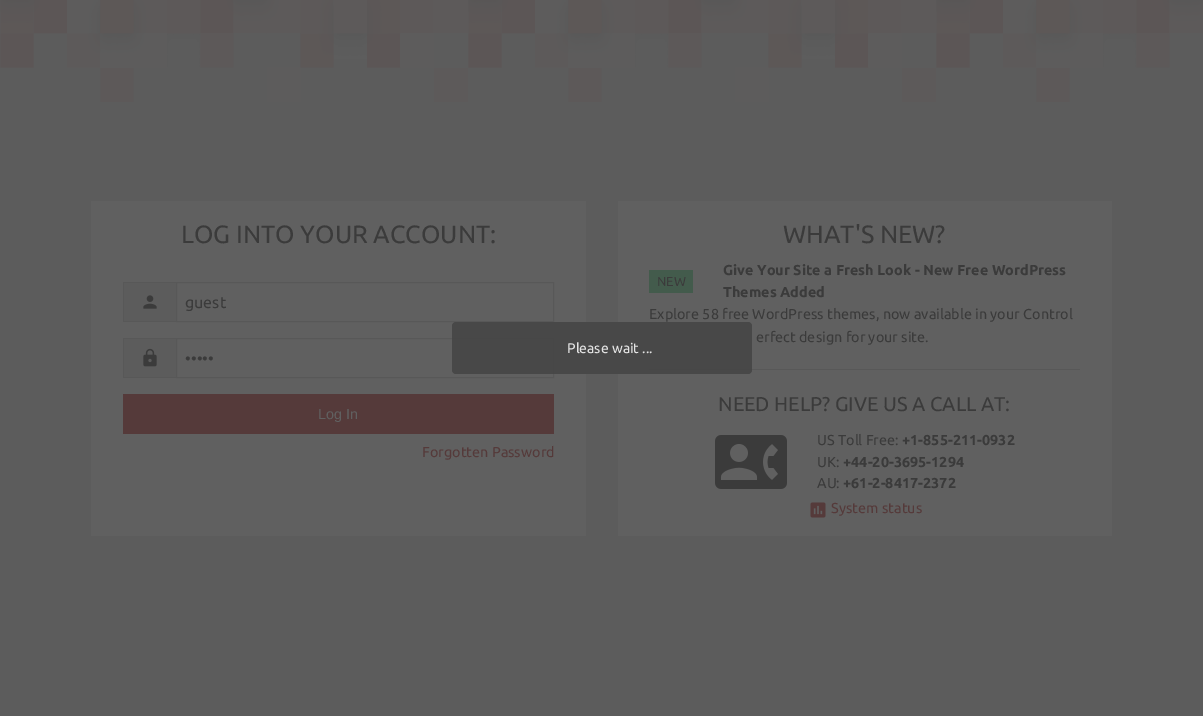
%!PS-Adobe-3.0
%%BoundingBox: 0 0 1203 716
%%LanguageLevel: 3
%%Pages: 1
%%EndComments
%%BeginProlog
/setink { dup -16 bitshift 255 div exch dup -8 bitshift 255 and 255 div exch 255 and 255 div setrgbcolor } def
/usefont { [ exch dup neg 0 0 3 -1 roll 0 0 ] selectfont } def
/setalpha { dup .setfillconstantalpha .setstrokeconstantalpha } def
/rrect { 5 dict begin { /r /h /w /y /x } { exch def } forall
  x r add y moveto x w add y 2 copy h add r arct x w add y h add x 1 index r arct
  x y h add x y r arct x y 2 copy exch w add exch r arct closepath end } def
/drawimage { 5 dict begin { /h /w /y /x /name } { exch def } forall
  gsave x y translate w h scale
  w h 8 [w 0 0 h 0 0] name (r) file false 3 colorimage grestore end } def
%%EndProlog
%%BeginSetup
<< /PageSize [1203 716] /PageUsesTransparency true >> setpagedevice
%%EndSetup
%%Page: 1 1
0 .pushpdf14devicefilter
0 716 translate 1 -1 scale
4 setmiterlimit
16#5C5C5C setink
0 0 1203 716 rectfill
(img1.raw) 0 0 1203 102 drawimage
16#606060 setink
91 201 495 335 rectfill
/Ubuntu-Regular 25 usefont
16#3B3B3B setink
181 243 moveto (LOG INTO YOUR ACCOUNT:) show
[
    [124 283 52 38 16#5C5C5C]
    [123 282 53 1 16#585858]
    [123 321 53 1 16#585858]
    [123 282 1 40 16#585858]
] { aload pop setink rectfill } forall
(img2.raw) 143 295 14 14 drawimage
176.5 282.5 377 39 rectstroke
/Ubuntu-Regular 16 usefont
16#3B3B3B setink
185 308 moveto (guest) show
[
    [124 339 52 38 16#5C5C5C]
    [123 338 53 1 16#585858]
    [123 377 53 1 16#585858]
    [123 338 1 40 16#585858]
] { aload pop setink rectfill } forall
(img3.raw) 143 348 14 19 drawimage
176.5 338.5 377 39 rectstroke
16#3B3B3B setink
185 364 moveto (•••••) show
16#553A3A setink
123 394 431 40 rectfill
/LiberationSans-Regular 14.4 usefont
16#606060 setink
318 419 moveto (Log In) show
/Ubuntu-Regular 14.4 usefont
16#553A3A setink
422 457 moveto (Forgotten Password) show
16#606060 setink
618 201 494 335 rectfill
/Ubuntu-Regular 25 usefont
16#3B3B3B setink
783 243 moveto (WHAT'S NEW?) show
16#435B4C setink
649 270 44 23 rectfill
/Ubuntu-Regular 13 usefont
16#3B3B3B setink
657 286 moveto (NEW) show
/Ubuntu-Bold 14.4 usefont
723 275 moveto (Give Your Site a Fresh Look - New Free WordPress) show
723 297 moveto (Themes Added) show
/Ubuntu-Regular 14.4 usefont
649 319 moveto (Explore 58 free WordPress themes, now available in your Control) show
756 342 moveto (erfect design for your site.) show
16#585858 setink
649 369 431 1 rectfill
/Ubuntu-Regular 20 usefont
16#3B3B3B setink
718 411 moveto (NEED HELP? GIVE US A CALL AT:) show
(img4.raw) 715 435 72 54 drawimage
/Ubuntu-Regular 14.4 usefont
817 445 moveto (US Toll Free:) show
/Ubuntu-Bold 14.4 usefont
902 445 moveto (+1-855-211-0932) show
/Ubuntu-Regular 14.4 usefont
817 467 moveto (UK:) show
/Ubuntu-Bold 14.4 usefont
843 467 moveto (+44-20-3695-1294) show
/Ubuntu-Regular 14.4 usefont
817 488 moveto (AU:) show
/Ubuntu-Bold 14.4 usefont
843 488 moveto (+61-2-8417-2372) show
(img5.raw) 810 502 16 16 drawimage
/Ubuntu-Regular 14.4 usefont
16#553A3A setink
831 513 moveto (System status) show
0.85 setalpha
16#444444 setink
452 322 300 52 4 rrect fill
/Ubuntu-Regular 14 usefont
1 setalpha
16#E3E3E3 setink
567 353 moveto (Please wait ...) show
.poppdf14devicefilter showpage
%%EOF
